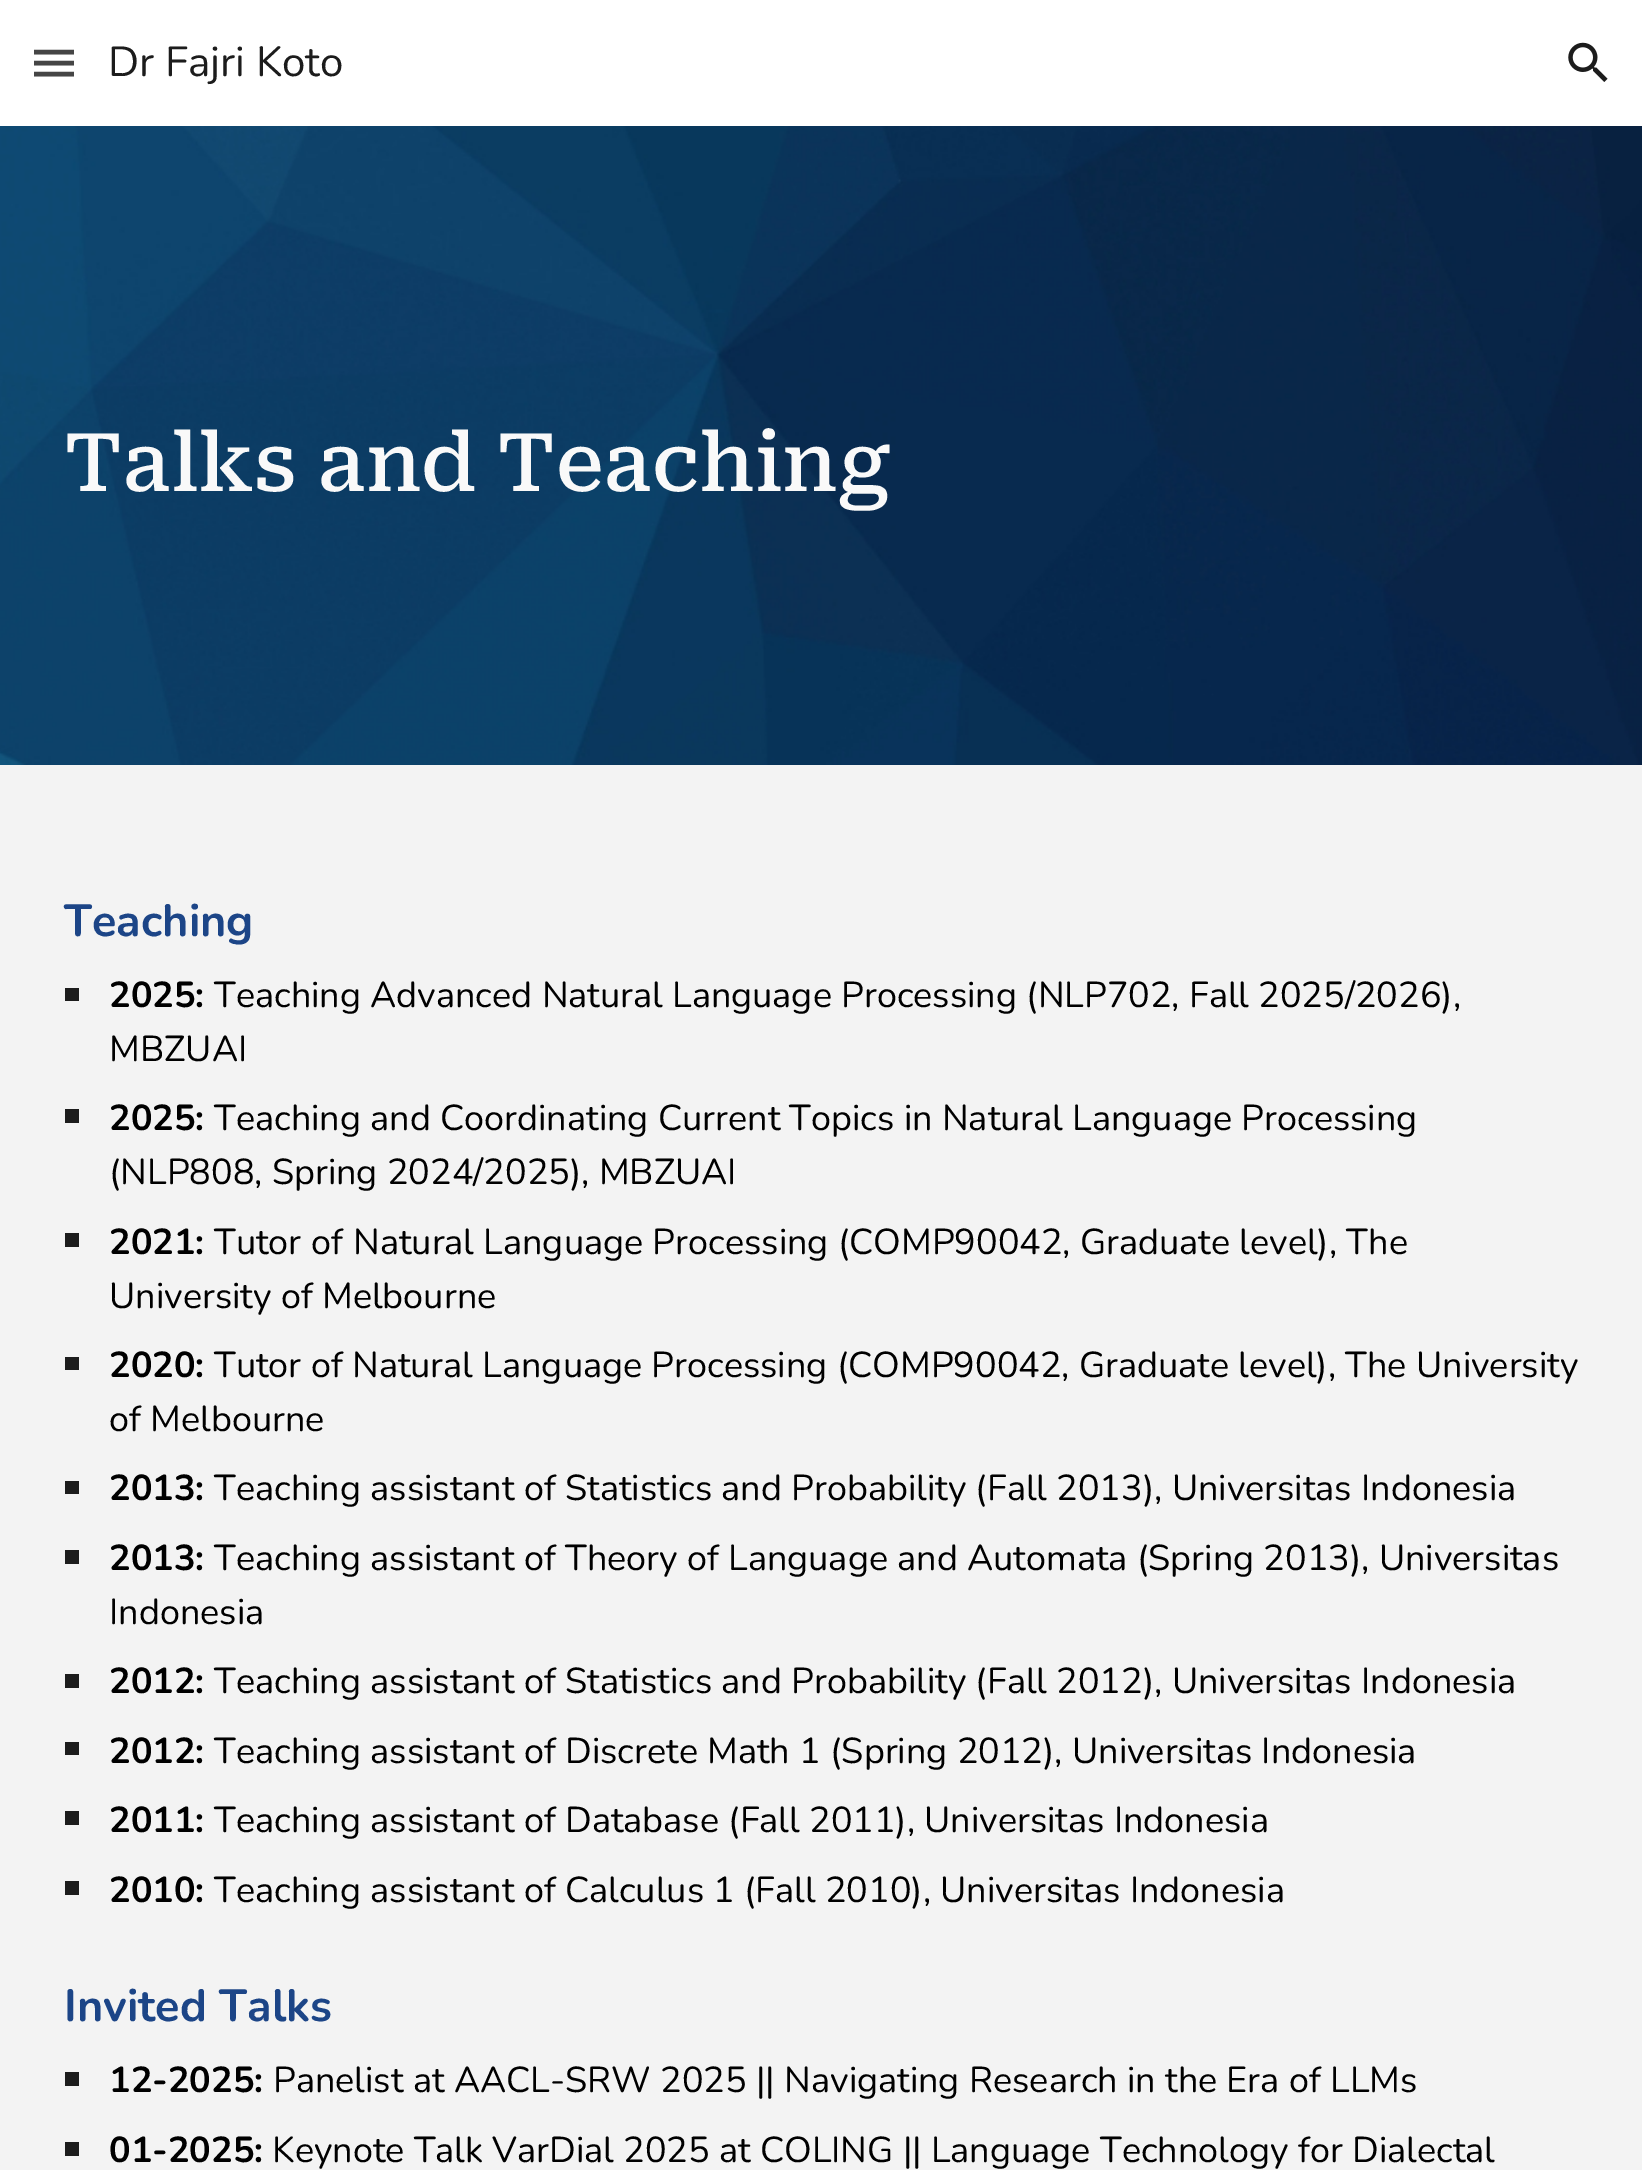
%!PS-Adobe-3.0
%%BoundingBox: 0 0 1642 2170
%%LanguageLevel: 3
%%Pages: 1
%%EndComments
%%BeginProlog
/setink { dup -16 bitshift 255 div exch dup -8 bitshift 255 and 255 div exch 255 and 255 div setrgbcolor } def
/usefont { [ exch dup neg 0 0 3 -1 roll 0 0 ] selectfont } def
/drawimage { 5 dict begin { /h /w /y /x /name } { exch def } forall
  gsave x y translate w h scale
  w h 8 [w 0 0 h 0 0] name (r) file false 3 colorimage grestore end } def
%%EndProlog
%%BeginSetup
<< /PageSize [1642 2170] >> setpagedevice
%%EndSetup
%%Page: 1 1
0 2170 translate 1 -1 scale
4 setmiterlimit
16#F3F3F3 setink
0 0 1642 2170 rectfill
16#FFFFFF setink
0 0 1642 126 rectfill
16#454545 setink
4.5 setlinewidth
34 52 moveto 74 52 lineto 34 63 moveto 74 63 lineto 34 74 moveto 74 74 lineto stroke
/Nunito-Regular 42 usefont
16#1C1C1C setink
108 76 moveto (Dr Fajri Koto) show
(img1.raw) 1568 42 40 40 drawimage
(img2.raw) 0 126 1642 639 drawimage
/RobotoSerif-Medium 81 usefont
16#F9F9F9 setink
64 491 moveto (Talks and Teaching) show
/Nunito-Bold 45 usefont
16#1C4587 setink
64 936 moveto (Teaching) show
16#1C1C1C setink
65 988 14 13 rectfill
/Nunito-Bold 36 usefont
16#000000 setink
109 1007 moveto (2025:) show
/Nunito-Regular 36 usefont
214 1007 moveto (Teaching Advanced Natural Language Processing \(NLP702, Fall 2025/2026\),) show
109 1061 moveto (MBZUAI) show
16#1C1C1C setink
65 1109 14 14 rectfill
/Nunito-Bold 36 usefont
16#000000 setink
109 1130 moveto (2025:) show
/Nunito-Regular 36 usefont
214 1130 moveto (Teaching and Coordinating Current Topics in Natural Language Processing) show
109 1184 moveto (\(NLP808, Spring 2024/2025\), MBZUAI) show
16#1C1C1C setink
65 1233 14 14 rectfill
/Nunito-Bold 36 usefont
16#000000 setink
109 1254 moveto (2021:) show
/Nunito-Regular 36 usefont
[
    [(Tutor of) 214 1254]
    [(Natural Language Processing \(COMP90042, Graduate level\), The) 353 1254]
    [(University of Melbourne) 109 1308]
] { aload pop moveto show } forall
16#1C1C1C setink
65 1357 14 13 rectfill
/Nunito-Bold 36 usefont
16#000000 setink
109 1377 moveto (2020:) show
/Nunito-Regular 36 usefont
214 1377 moveto (Tutor of Natural Language Processing \(COMP90042, Graduate level\), The University) show
109 1431 moveto (of Melbourne) show
16#1C1C1C setink
65 1481 14 13 rectfill
/Nunito-Bold 36 usefont
16#000000 setink
109 1500 moveto (2013:) show
/Nunito-Regular 36 usefont
214 1500 moveto (Teaching assistant of Statistics and Probability \(Fall 2013\), Universitas Indonesia) show
16#1C1C1C setink
65 1550 14 14 rectfill
/Nunito-Bold 36 usefont
16#000000 setink
109 1570 moveto (2013:) show
/Nunito-Regular 36 usefont
214 1570 moveto (Teaching assistant of Theory of Language and Automata \(Spring 2013\), Universitas) show
109 1624 moveto (Indonesia) show
16#1C1C1C setink
65 1674 14 14 rectfill
/Nunito-Bold 36 usefont
16#000000 setink
109 1693 moveto (2012:) show
/Nunito-Regular 36 usefont
214 1693 moveto (Teaching assistant of Statistics and Probability \(Fall 2012\), Universitas Indonesia) show
16#1C1C1C setink
65 1742 14 13 rectfill
/Nunito-Bold 36 usefont
16#000000 setink
109 1763 moveto (2012:) show
/Nunito-Regular 36 usefont
214 1763 moveto (Teaching assistant of Discrete Math 1 \(Spring 2012\), Universitas Indonesia) show
16#1C1C1C setink
65 1811 14 14 rectfill
/Nunito-Bold 36 usefont
16#000000 setink
109 1832 moveto (2011:) show
/Nunito-Regular 36 usefont
214 1832 moveto (Teaching assistant of Database \(Fall 2011\), Universitas Indonesia) show
16#1C1C1C setink
65 1881 14 14 rectfill
/Nunito-Bold 36 usefont
16#000000 setink
109 1902 moveto (2010:) show
/Nunito-Regular 36 usefont
214 1902 moveto (Teaching assistant of Calculus 1 \(Fall 2010\), Universitas Indonesia) show
/Nunito-Bold 45 usefont
16#1C4587 setink
64 2021 moveto (Invited Talks) show
16#1C1C1C setink
65 2072 14 14 rectfill
/Nunito-Bold 36 usefont
16#000000 setink
109 2092 moveto (12-2025:) show
/Nunito-Regular 36 usefont
273 2092 moveto (Panelist at AACL-SRW 2025 || Navigating Research in the Era of LLMs) show
16#1C1C1C setink
65 2142 14 14 rectfill
/Nunito-Bold 36 usefont
16#000000 setink
109 2162 moveto (01-2025:) show
/Nunito-Regular 36 usefont
272 2162 moveto (Keynote Talk VarDial 2025 at COLING || Language Technology for Dialectal) show
showpage
%%EOF
